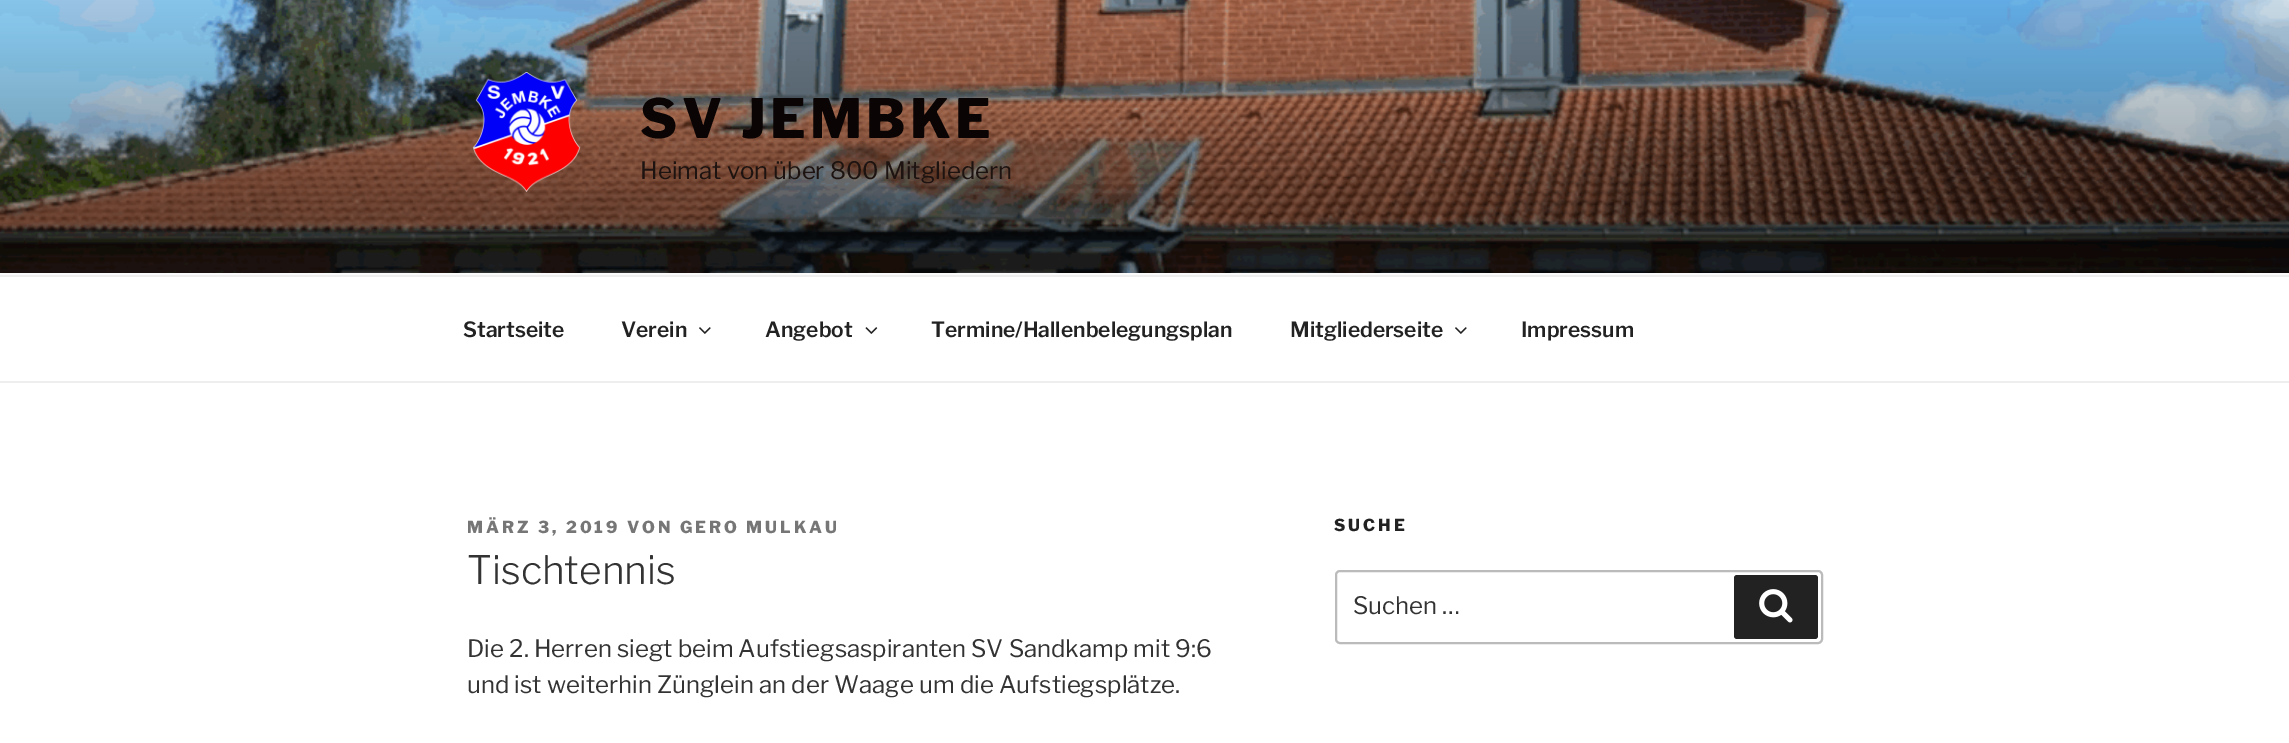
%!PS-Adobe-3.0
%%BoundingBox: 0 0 2289 743
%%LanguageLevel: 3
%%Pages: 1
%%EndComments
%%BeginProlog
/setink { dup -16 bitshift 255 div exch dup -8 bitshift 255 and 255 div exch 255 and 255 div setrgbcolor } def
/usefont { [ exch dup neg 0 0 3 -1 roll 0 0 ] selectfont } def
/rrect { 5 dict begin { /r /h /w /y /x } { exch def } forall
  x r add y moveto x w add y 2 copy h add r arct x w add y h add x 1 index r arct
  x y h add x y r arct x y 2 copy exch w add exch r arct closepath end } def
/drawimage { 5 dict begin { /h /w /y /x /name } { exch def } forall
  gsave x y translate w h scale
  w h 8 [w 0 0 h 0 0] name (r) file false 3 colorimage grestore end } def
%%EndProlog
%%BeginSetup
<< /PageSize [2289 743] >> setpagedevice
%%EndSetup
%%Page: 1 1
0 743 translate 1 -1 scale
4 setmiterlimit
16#FFFFFF setink
0 0 2289 743 rectfill
16#FAFAFA setink
0 273 2289 2 rectfill
(img1.raw) 0 0 2289 273 drawimage
(img2.raw) 472 72 109 120 drawimage
/LibreFranklin-Thin 54 usefont
16#0A0404 setink
640 138 moveto 4.25 0 (SV JEMBKE) ashow
/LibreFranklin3-Thin 24 usefont
16#1D1310 setink
640 179 moveto (Heimat von über 800 Mitgliedern) show
16#EEEEEE setink
0 275 2289 2 rectfill
0 381 2289 2 rectfill
/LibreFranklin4-Thin 21 usefont
16#222222 setink
463 337 moveto (Startseite) show
621 337 moveto (Verein) show
(img3.raw) 699 327 12 7 drawimage
765 337 moveto (Angebot) show
(img4.raw) 865 327 13 7 drawimage
931 337 moveto (Termine/Hallenbelegungsplan) show
1290 337 moveto (Mitgliederseite) show
(img3.raw) 1455 327 12 7 drawimage
1521 337 moveto (Impressum) show
/LibreFranklin-Thin 16.5 usefont
16#767676 setink
467 533 moveto 3 0 (MÄRZ 3, 2019 VON GERO MULKAU) ashow
/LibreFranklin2-Thin 39 usefont
16#333333 setink
467 584 moveto (Tischtennis) show
/LibreFranklin3-Thin 24 usefont
467 657 moveto (Die 2. Herren siegt beim Aufstiegsaspiranten SV Sandkamp mit 9:6) show
467 693 moveto (und ist weiterhin Zünglein an der Waage um die Aufstiegsplätze.) show
/LibreFranklin-Thin 16.5 usefont
16#222222 setink
1334 531 moveto 3 0 (SUCHE) ashow
16#BBBBBB setink
2 setlinewidth
1336 571 486 72 4 rrect stroke
/LibreFranklin3-Thin 24 usefont
16#333333 setink
1353 614 moveto (Suchen …) show
16#222222 setink
1734 575 84 64 3 rrect fill
(img5.raw) 1759 589 34 34 drawimage
showpage
%%EOF
